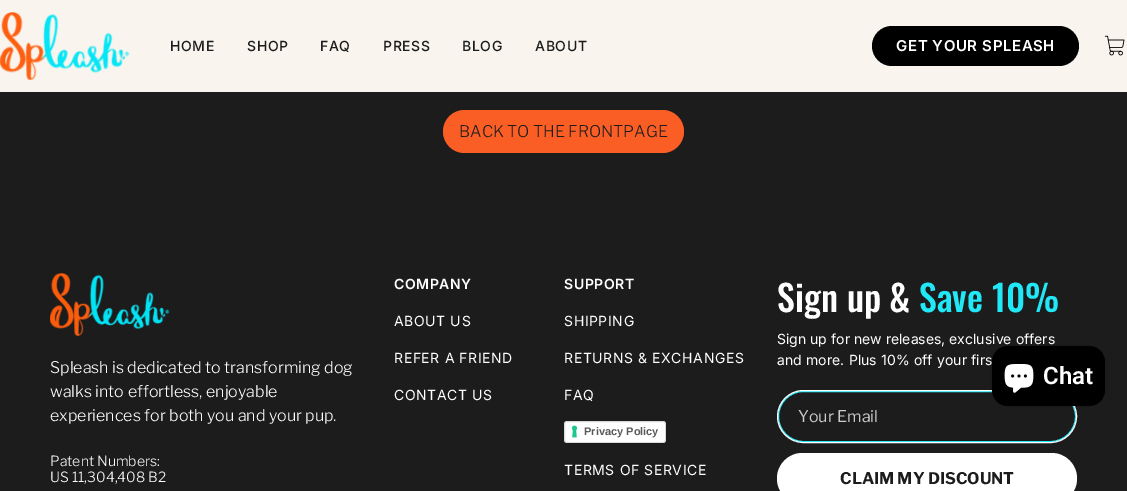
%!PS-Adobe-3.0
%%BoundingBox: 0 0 1127 491
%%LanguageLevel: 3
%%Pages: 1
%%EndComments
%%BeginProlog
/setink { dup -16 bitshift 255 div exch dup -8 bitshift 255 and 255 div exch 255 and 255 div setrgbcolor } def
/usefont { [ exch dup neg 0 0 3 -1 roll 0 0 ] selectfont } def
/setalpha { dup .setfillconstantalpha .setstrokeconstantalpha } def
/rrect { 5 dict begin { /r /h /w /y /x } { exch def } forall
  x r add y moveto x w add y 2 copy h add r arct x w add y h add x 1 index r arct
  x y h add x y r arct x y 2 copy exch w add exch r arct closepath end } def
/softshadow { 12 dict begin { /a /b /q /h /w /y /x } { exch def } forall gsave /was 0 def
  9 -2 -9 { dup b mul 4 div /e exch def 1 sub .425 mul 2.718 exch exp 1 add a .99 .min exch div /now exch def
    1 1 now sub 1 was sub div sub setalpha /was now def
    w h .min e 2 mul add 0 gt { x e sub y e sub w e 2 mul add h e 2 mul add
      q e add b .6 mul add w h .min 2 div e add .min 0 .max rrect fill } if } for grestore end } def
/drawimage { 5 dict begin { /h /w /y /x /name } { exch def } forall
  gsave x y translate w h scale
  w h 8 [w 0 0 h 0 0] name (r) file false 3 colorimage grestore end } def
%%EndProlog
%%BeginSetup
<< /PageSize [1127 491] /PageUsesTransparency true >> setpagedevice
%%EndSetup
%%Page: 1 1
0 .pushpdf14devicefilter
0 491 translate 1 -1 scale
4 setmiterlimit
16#1C1C1D setink
0 0 1127 491 rectfill
16#F9F5EE setink
0 0 1127 92 rectfill
(img1.raw) 0 12 130 68 drawimage
/Inter-Medium 14 usefont
16#1C1C1D setink
170 51 moveto 0.6 0 (HOME) ashow
247 51 moveto 0.6 0 (SHOP) ashow
320 51 moveto 0.6 0 (FAQ) ashow
383 51 moveto 0.6 0 (PRESS) ashow
462 51 moveto 0.6 0 (BLOG) ashow
535 51 moveto 0.6 0 (ABOUT) ashow
16#000000 setink
872 26 207 40 20 rrect fill
/Inter-SemiBold 15 usefont
16#FFFFFF setink
896 51 moveto 0.6 0 (GET YOUR SPLEASH) ashow
(img2.raw) 1104 35 21 21 drawimage
16#FB5E24 setink
443 110 241 43 21.5 rrect fill
/LibreFranklin-Light 16 usefont
16#1C1C1D setink
459 137 moveto (BACK TO THE FRONTPAGE) show
(img3.raw) 50 273 120 63 drawimage
16#FFFFFF setink
[
    [(Spleash is dedicated to transforming dog) 50 373]
    [(walks into effortless, enjoyable) 50 397]
    [(experiences for both you and your pup.) 50 421]
] { aload pop moveto show } forall
/LibreFranklin-Light 14 usefont
50 466 moveto (Patent Numbers:) show
50 482 moveto (US 11,304,408 B2) show
/Inter-SemiBold 14 usefont
394 289 moveto 0.6 0 (COMPANY) ashow
/Inter-Regular 14 usefont
394 326 moveto 0.6 0 (ABOUT US) ashow
394 363 moveto 0.6 0 (REFER A FRIEND) ashow
394 400 moveto 0.6 0 (CONTACT US) ashow
/Inter-SemiBold 14 usefont
564 289 moveto 0.6 0 (SUPPORT) ashow
/Inter-Regular 14 usefont
564 326 moveto 0.6 0 (SHIPPING) ashow
564 363 moveto 0.6 0 (RETURNS & EXCHANGES) ashow
564 400 moveto 0.6 0 (FAQ) ashow
564 421 102 22 3 rrect fill
(img4.raw) 571 425 7 13 drawimage
0.15 setalpha
16#000000 setink
564.5 421.5 101 21 2.5 rrect stroke
/LiberationSans-Bold 11 usefont
1 setalpha
16#595959 setink
584 435 moveto (Privacy Policy) show
/Inter-Regular 14 usefont
16#FFFFFF setink
564 475 moveto 0.6 0 (TERMS OF SERVICE) ashow
/Oswald-Medium 36 usefont
777 312 moveto (Sign up &) show
16#20E8F7 setink
919 312 moveto (Save 10%) show
/Inter-Regular 14 usefont
16#FFFFFF setink
777 344 moveto (Sign up for new releases, exclusive offers) show
777 365 moveto 0.5 0 32 (and more. Plus 10% off your firs) widthshow
16#20E8F7 setink
778.5 391.5 297 50 25 rrect stroke
16#FFFFFF setink
777.5 390.5 299 52 26 rrect stroke
/LibreFranklin-Regular 16 usefont
16#CCCCCC setink
798 422 moveto (Your Email) show
16#FFFFFF setink
777 453 300 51 25.5 rrect fill
/LibreFranklin-Bold 16 usefont
16#1C1C1D setink
840 484 moveto (CLAIM MY DISCOUNT) show
16#000000 setink
992 346 113 60 16 2.5 0.15 softshadow
992 346 113 60 16 rrect fill
(img5.raw) 1004 364 30 29 drawimage
/Roboto-SemiBold 24 usefont
16#FFFFFF setink
1043 384 moveto (Chat) show
.poppdf14devicefilter showpage
%%EOF
